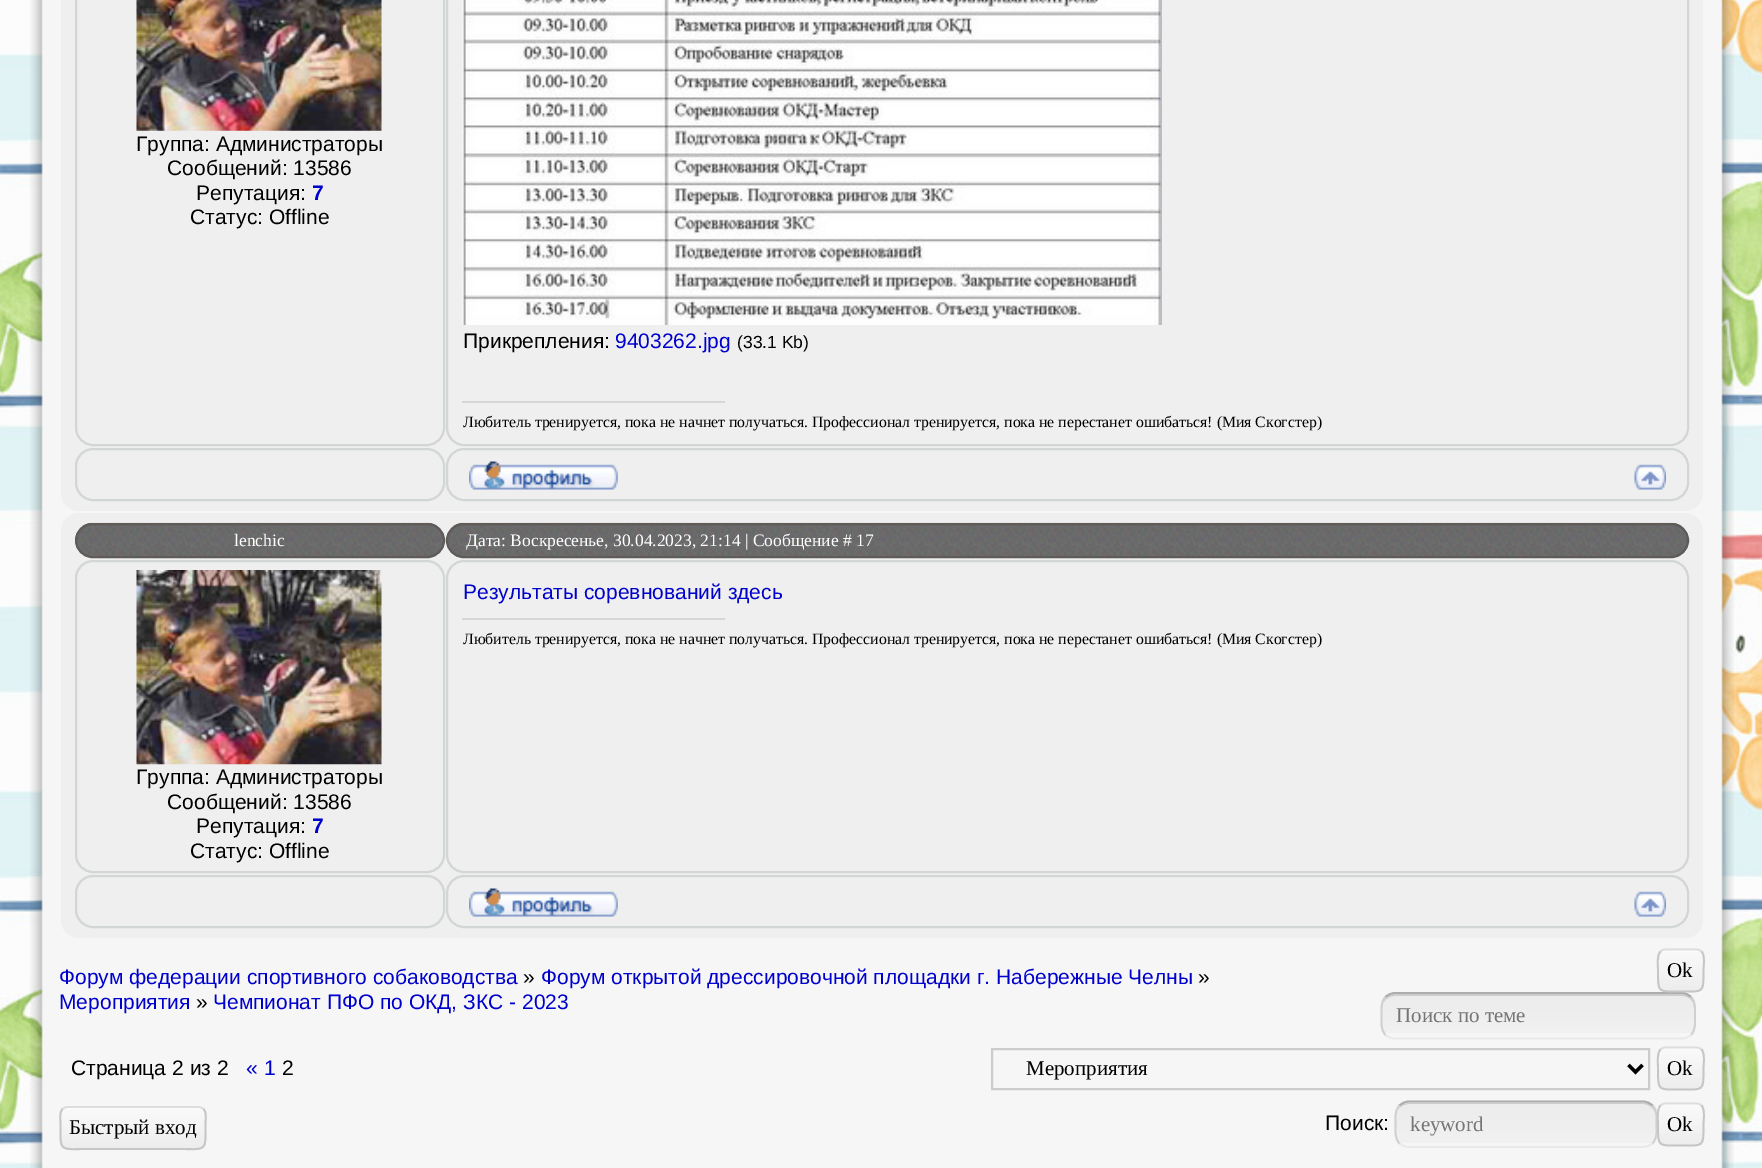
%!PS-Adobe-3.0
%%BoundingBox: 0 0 1762 1168
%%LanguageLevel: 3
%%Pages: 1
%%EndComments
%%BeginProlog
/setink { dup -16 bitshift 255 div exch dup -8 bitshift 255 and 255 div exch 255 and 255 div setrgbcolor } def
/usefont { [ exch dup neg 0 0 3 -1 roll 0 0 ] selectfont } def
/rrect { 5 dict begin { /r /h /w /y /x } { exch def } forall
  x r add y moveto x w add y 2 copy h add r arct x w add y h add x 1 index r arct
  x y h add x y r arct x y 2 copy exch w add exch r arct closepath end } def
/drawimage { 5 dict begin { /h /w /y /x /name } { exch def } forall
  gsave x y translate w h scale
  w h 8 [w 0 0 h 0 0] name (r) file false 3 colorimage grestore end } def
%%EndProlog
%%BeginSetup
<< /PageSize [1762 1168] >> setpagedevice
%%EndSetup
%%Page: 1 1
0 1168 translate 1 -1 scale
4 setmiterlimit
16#FFFFFF setink
0 0 1762 1168 rectfill
(img1.raw) 0 0 1762 1168 drawimage
(img2.raw) 30 0 1704 1168 drawimage
16#EFEFEF setink
61 -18 1642 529 18 rrect fill
16#D2D6D6 setink
2 setlinewidth
76 -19 368 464 17 rrect stroke
(img3.raw) 136 0 246 131 drawimage
/LiberationSans-Regular 21 usefont
16#000000 setink
[
    [(Группа: Администраторы) 136 151]
    [(Сообщений: 13586) 167 175]
    [(Репутация:) 196 200]
] { aload pop moveto show } forall
/LiberationSans-Bold 21 usefont
16#0000CD setink
312 200 moveto (7) show
/LiberationSans-Regular 21 usefont
16#000000 setink
190 224 moveto (Статус: Offline) show
16#D2D6D6 setink
447 -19 1241 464 17 rrect stroke
(img4.raw) 462 0 700 325 drawimage
16#000000 setink
463 348 moveto (Прикрепления:) show
16#0000CD setink
615 348 moveto (9403262.jpg) show
/LiberationSans-Regular 17.5 usefont
16#000000 setink
737 348 moveto (\(33.1 Kb\)) show
16#D6D6D6 setink
462 401 263 2 rectfill
/LiberationSerif-Regular 15.75 usefont
16#000000 setink
463 427 moveto (Любитель тренируется, пока не начнет получаться. Профессионал тренируется, пока не перестанет ошибаться! \(Мия Скогстер\)) show
16#D2D6D6 setink
76 449 368 51 17 rrect stroke
447 449 1241 51 17 rrect stroke
(img5.raw) 469 461 149 29 drawimage
(img6.raw) 1634 464 32 26 drawimage
16#EFEFEF setink
61 513 1642 425 18 rrect fill
(img7.raw) 75 522 370 36 drawimage
16#5E5B59 setink
76 524 368 33 16.5 rrect stroke
/LiberationSerif-Regular 17.5 usefont
16#FFFFFF setink
234 546 moveto (lenchic) show
(img8.raw) 446 522 1243 36 drawimage
16#5E5B59 setink
447 524 1241 33 16.5 rrect stroke
16#FFFFFF setink
466 546 moveto (Дата: Воскресенье, 30.04.2023, 21:14 | Сообщение # 17) show
16#D2D6D6 setink
447 561 1241 311 17 rrect stroke
/LiberationSans-Regular 21 usefont
16#0000CD setink
463 599 moveto (Результаты соревнований здесь) show
16#D6D6D6 setink
462 618 263 2 rectfill
/LiberationSerif-Regular 15.75 usefont
16#000000 setink
463 644 moveto (Любитель тренируется, пока не начнет получаться. Профессионал тренируется, пока не перестанет ошибаться! \(Мия Скогстер\)) show
16#D2D6D6 setink
76 561 368 311 17 rrect stroke
(img9.raw) 136 570 246 195 drawimage
/LiberationSans-Regular 21 usefont
16#000000 setink
[
    [(Группа: Администраторы) 136 784]
    [(Сообщений: 13586) 167 809]
    [(Репутация:) 196 833]
] { aload pop moveto show } forall
/LiberationSans-Bold 21 usefont
16#0000CD setink
312 833 moveto (7) show
/LiberationSans-Regular 21 usefont
16#000000 setink
190 858 moveto (Статус: Offline) show
16#D2D6D6 setink
76 876 368 51 17 rrect stroke
447 876 1241 51 17 rrect stroke
(img5.raw) 469 888 149 29 drawimage
(img6.raw) 1634 891 32 26 drawimage
16#0000CD setink
59 984 moveto (Форум федерации спортивного собаководства) show
16#000000 setink
523 984 moveto (») show
16#0000CD setink
541 984 moveto (Форум открытой дрессировочной площадки г. Набережные Челны) show
16#000000 setink
1198 984 moveto (») show
16#0000CD setink
59 1009 moveto (Мероприятия) show
16#000000 setink
196 1009 moveto (») show
16#0000CD setink
213 1009 moveto (Чемпионат ПФО по ОКД, ЗКС - 2023) show
(img10.raw) 1658 950 46 42 drawimage
16#DDDDDD setink
1.8 setlinewidth
1660.5 951.5 moveto 1662 950 1664 949.5 1666 949.5 curveto 1696 949.5 lineto 1698 949.5 1700 950 1701.5 951.5 curveto stroke
(img11.raw) 1381 993 314 40 drawimage
16#CDCDCD setink
1395 996 moveto 1682 996 lineto 1689 996 1694 1001 1694 1008 curveto 1694 1006 lineto 1694 999 1689 994 1682 994 curveto 1395 994 lineto 1390 994 1385 997 1384 1002 curveto 1386 998 1390 996 1395 996 curveto closepath fill
16#ACACAC setink
1385.5 997 moveto 1388 994.5 1391.5 993 1395 993 curveto 1682 993 lineto 1685 993 1688.5 994.5 1691 997 curveto stroke
16#C6C6C6 setink
1701.5 951.5 moveto 1705.5 955.5 1703.5 965.5 1703.5 970.5 curveto 1703.5 993.5 1704 991.5 1681 991.5 curveto 1657.5 991.5 1658 993.5 1658 970.5 curveto 1658 965.5 1656.5 955.5 1660.5 951.5 curveto stroke
/LiberationSerif-Regular 21 usefont
16#000000 setink
1667 977 moveto (Ok) show
16#D0D0D0 setink
1691 997 moveto 1696 1002 1695 1009.5 1695 1016 curveto 1695 1022.5 1696 1029.5 1691 1035 curveto stroke
16#E9E9E9 setink
1691 1035 moveto 1688.5 1037 1685 1038.5 1682 1038.5 curveto 1395 1038.5 lineto 1391.5 1038.5 1388 1037 1385.5 1035 curveto stroke
16#D0D0D0 setink
1385.5 1035 moveto 1380.5 1029.5 1381.5 1022.5 1381.5 1016 curveto 1381.5 1009.5 1380.5 1002 1385.5 997 curveto stroke
16#757575 setink
1396 1022 moveto (Поиск по теме) show
/LiberationSans-Regular 21 usefont
16#000000 setink
71 1075 moveto (Страница 2 из 2) show
16#0000CD setink
246 1075 moveto (« 1) show
16#000000 setink
282 1075 moveto (2) show
16#CCCCCC setink
2 setlinewidth
992 1049 657 40 rectstroke
16#000000 setink
3.5 setlinewidth
1628.5 1065 moveto 1635.5 1072 lineto 1642.5 1065 lineto stroke
/LiberationSerif-Regular 21 usefont
1026 1075 moveto (Мероприятия) show
(img10.raw) 1658 1048 46 42 drawimage
16#DDDDDD setink
1.8 setlinewidth
1660.5 1049.5 moveto 1662 1048 1664 1047.5 1666 1047.5 curveto 1696 1047.5 lineto 1698 1047.5 1700 1048 1701.5 1049.5 curveto stroke
16#C6C6C6 setink
1701.5 1049.5 moveto 1705.5 1053.5 1703.5 1063.5 1703.5 1068.5 curveto 1703.5 1091.5 1704 1089.5 1681 1089.5 curveto 1657.5 1089.5 1658 1091.5 1658 1068.5 curveto 1658 1063.5 1656.5 1053.5 1660.5 1049.5 curveto stroke
16#000000 setink
1667 1075 moveto (Ok) show
(img12.raw) 60 1107 146 42 drawimage
16#DDDDDD setink
62.5 1109 moveto 64 1107.5 66 1107 68 1107 curveto 198 1107 lineto 200 1107 202 1107.5 203.5 1109 curveto stroke
16#C6C6C6 setink
203.5 1109 moveto 207 1113 205.5 1119 205.5 1123.5 curveto 205.5 1153 208 1149 176 1149 curveto 90 1149 lineto 58 1149 60.5 1153 60.5 1123.5 curveto 60.5 1119 59 1113 62.5 1109 curveto stroke
16#000000 setink
69 1134 moveto (Быстрый вход) show
/LiberationSans-Regular 21 usefont
1325 1130 moveto (Поиск:) show
(img13.raw) 1395 1102 262 41 drawimage
16#CDCDCD setink
1409 1104 moveto 1643 1104 lineto 1650 1104 1656 1110 1656 1116 curveto 1656 1115 lineto 1656 1108 1651 1103 1644 1103 curveto 1409 1103 lineto 1404 1103 1400 1106 1398 1109 curveto 1401 1106 1405 1104 1409 1104 curveto closepath fill
16#ACACAC setink
1399.5 1105.5 moveto 1402 1103 1405.5 1101.5 1409 1101.5 curveto 1643 1101.5 lineto 1646.5 1101.5 1650 1103 1652.5 1105.5 curveto stroke
16#D0D0D0 setink
1652.5 1105.5 moveto 1657.5 1110.5 1656.5 1118 1656.5 1124.5 curveto 1656.5 1131 1657.5 1138 1652.5 1143.5 curveto stroke
16#E9E9E9 setink
1652.5 1143.5 moveto 1650 1145.5 1646.5 1147 1643 1147 curveto 1409 1147 lineto 1405.5 1147 1402 1145.5 1399.5 1143.5 curveto stroke
16#D0D0D0 setink
1399.5 1143.5 moveto 1394.5 1138 1395.5 1131 1395.5 1124.5 curveto 1395.5 1118 1394.5 1110.5 1399.5 1105.5 curveto stroke
/LiberationSerif-Regular 21 usefont
16#757575 setink
1410 1131 moveto (keyword) show
(img14.raw) 1657 1104 47 42 drawimage
16#DDDDDD setink
1660.5 1105.5 moveto 1662 1104 1664 1103.5 1666 1103.5 curveto 1696 1103.5 lineto 1698 1103.5 1700 1104 1701.5 1105.5 curveto stroke
16#C6C6C6 setink
1701.5 1105.5 moveto 1705.5 1109.5 1703.5 1119.5 1703.5 1124.5 curveto 1703.5 1147.5 1704 1145.5 1681 1145.5 curveto 1657.5 1145.5 1658 1147.5 1658 1124.5 curveto 1658 1119.5 1656.5 1109.5 1660.5 1105.5 curveto stroke
16#000000 setink
1667 1131 moveto (Ok) show
showpage
%%EOF
